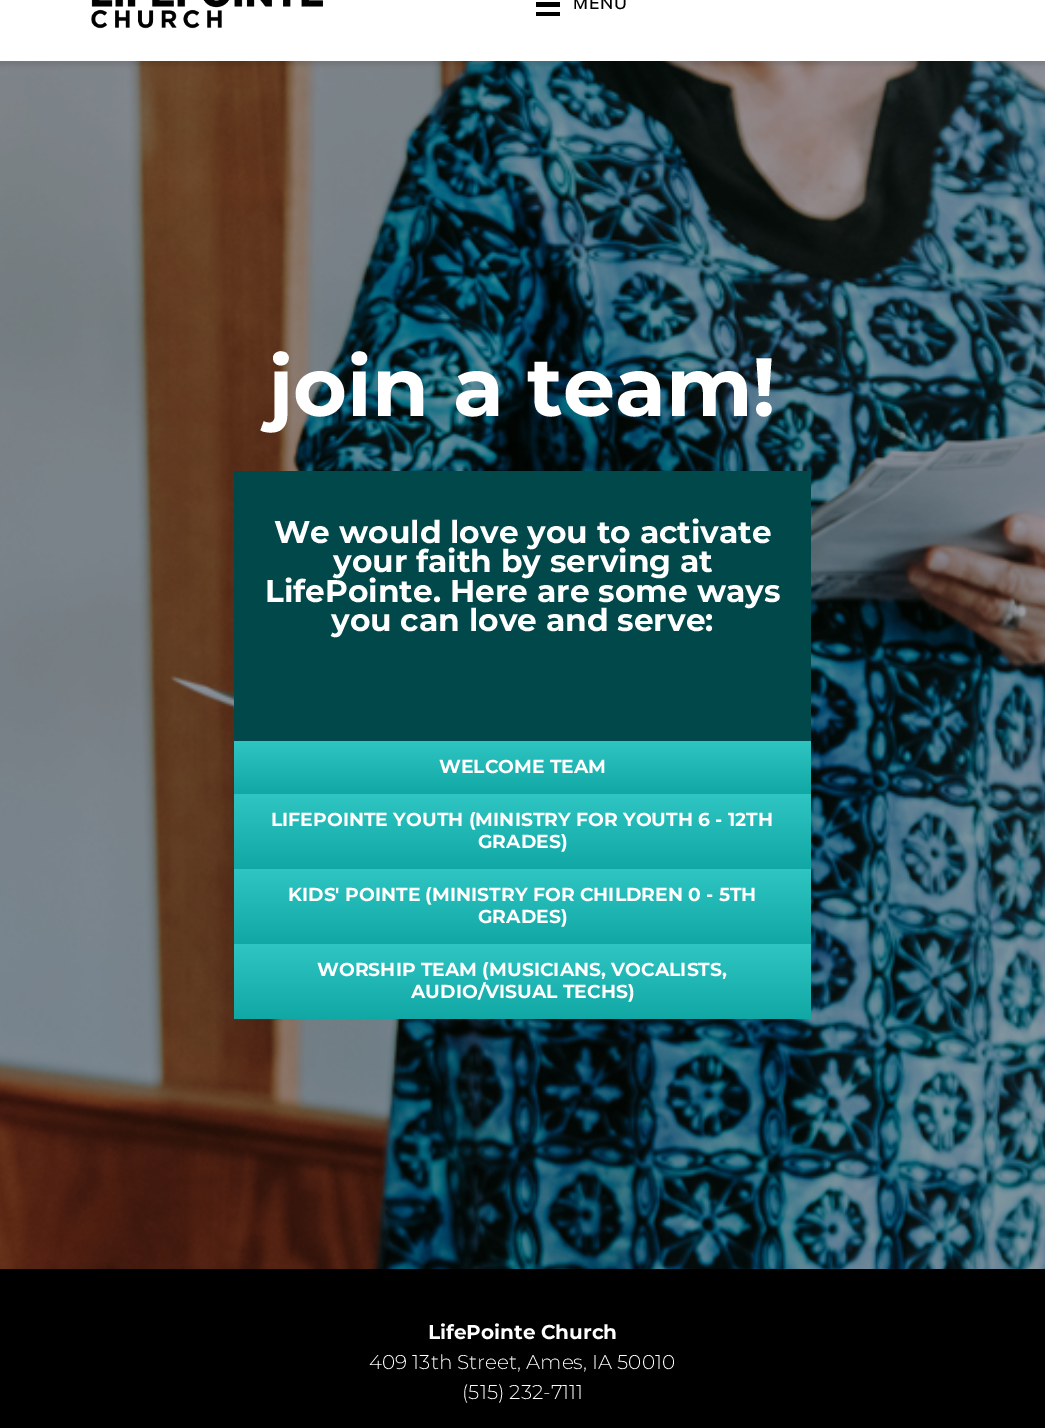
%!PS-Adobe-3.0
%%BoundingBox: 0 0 1045 1428
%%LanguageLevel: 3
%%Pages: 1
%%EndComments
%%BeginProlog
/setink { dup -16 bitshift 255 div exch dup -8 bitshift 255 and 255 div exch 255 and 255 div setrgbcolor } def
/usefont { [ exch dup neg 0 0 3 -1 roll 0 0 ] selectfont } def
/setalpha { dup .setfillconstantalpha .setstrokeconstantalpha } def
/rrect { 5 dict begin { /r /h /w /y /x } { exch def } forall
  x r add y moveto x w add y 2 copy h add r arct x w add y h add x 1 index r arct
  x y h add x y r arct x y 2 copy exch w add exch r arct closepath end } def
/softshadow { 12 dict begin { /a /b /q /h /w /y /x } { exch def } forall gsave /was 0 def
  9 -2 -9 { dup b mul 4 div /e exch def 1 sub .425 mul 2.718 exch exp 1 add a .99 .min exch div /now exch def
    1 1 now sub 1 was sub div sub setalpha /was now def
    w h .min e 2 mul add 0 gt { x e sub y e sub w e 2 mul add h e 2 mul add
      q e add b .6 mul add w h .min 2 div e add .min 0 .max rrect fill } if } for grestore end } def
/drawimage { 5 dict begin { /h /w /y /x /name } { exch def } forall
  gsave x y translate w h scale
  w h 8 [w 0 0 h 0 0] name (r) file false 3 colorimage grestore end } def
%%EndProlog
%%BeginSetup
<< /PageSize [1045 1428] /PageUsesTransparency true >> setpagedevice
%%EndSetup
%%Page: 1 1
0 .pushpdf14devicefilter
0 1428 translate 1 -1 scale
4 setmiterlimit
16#FFFFFF setink
0 0 1045 1428 rectfill
(img2.raw) 0 61 1045 1208 drawimage
16#000000 setink
-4 -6 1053 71 0 2 0.1 softshadow
16#FFFFFF setink
0 0 1045 61 rectfill
(img1.raw) 91 0 233 29 drawimage
16#000000 setink
536 2 24 5 rectfill
536 12 24 4 rectfill
/Muli-SemiBold 17.5 usefont
573 9 moveto 1 0 (MENU) ashow
/Montserrat-Thin 82.5 usefont
16#FFFFFF setink
268 416 moveto (join a team!) show
16#004849 setink
234 471 577 270 rectfill
/Montserrat-Thin 31.25 usefont
16#FFFFFF setink
[
    [(We would love you to activate) 274 543]
    [(your faith by serving at) 333 572]
    [(LifePointe. Here are some ways) 265 602]
    [(you can love and serve:) 331 631]
] { aload pop moveto show } forall
gsave 234 741 moveto 811 741 lineto 811 794 lineto 234 794 lineto closepath clip newpath
<< /ShadingType 2 /ColorSpace /DeviceRGB /Coords [523 741 523 794] /Extend [true true] /Function << /FunctionType 2 /Domain [0 1] /C0 [0.184 0.773 0.765] /C1 [0.067 0.655 0.647] /N 1 >> >> shfill grestore
/Montserrat-Thin 18.75 usefont
439 773 moveto (WELCOME TEAM) show
gsave 234 794 moveto 811 794 lineto 811 869 lineto 234 869 lineto closepath clip newpath
<< /ShadingType 2 /ColorSpace /DeviceRGB /Coords [523 794 523 869] /Extend [true true] /Function << /FunctionType 2 /Domain [0 1] /C0 [0.184 0.773 0.765] /C1 [0.067 0.655 0.647] /N 1 >> >> shfill grestore
271 826 moveto (LIFEPOINTE YOUTH \(MINISTRY FOR YOUTH 6 - 12TH) show
478 848 moveto (GRADES\)) show
gsave 234 869 moveto 811 869 lineto 811 944 lineto 234 944 lineto closepath clip newpath
<< /ShadingType 2 /ColorSpace /DeviceRGB /Coords [523 869 523 944] /Extend [true true] /Function << /FunctionType 2 /Domain [0 1] /C0 [0.184 0.773 0.765] /C1 [0.067 0.655 0.647] /N 1 >> >> shfill grestore
288 901 moveto (KIDS' POINTE \(MINISTRY FOR CHILDREN 0 - 5TH) show
478 923 moveto (GRADES\)) show
gsave 234 944 moveto 811 944 lineto 811 1019 lineto 234 1019 lineto closepath clip newpath
<< /ShadingType 2 /ColorSpace /DeviceRGB /Coords [523 944 523 1019] /Extend [true true] /Function << /FunctionType 2 /Domain [0 1] /C0 [0.184 0.773 0.765] /C1 [0.067 0.655 0.647] /N 1 >> >> shfill grestore
317 976 moveto (WORSHIP TEAM \(MUSICIANS, VOCALISTS,) show
411 998 moveto (AUDIO/VISUAL TECHS\)) show
16#000000 setink
0 1269 1045 159 rectfill
/Montserrat-Thin 20 usefont
16#FFFFFF setink
428 1339 moveto (LifePointe Church) show
/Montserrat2-Thin 20 usefont
369 1369 moveto (409 13th Street, Ames, IA 50010) show
462 1399 moveto (\(515\) 232-7111) show
.poppdf14devicefilter showpage
%%EOF
